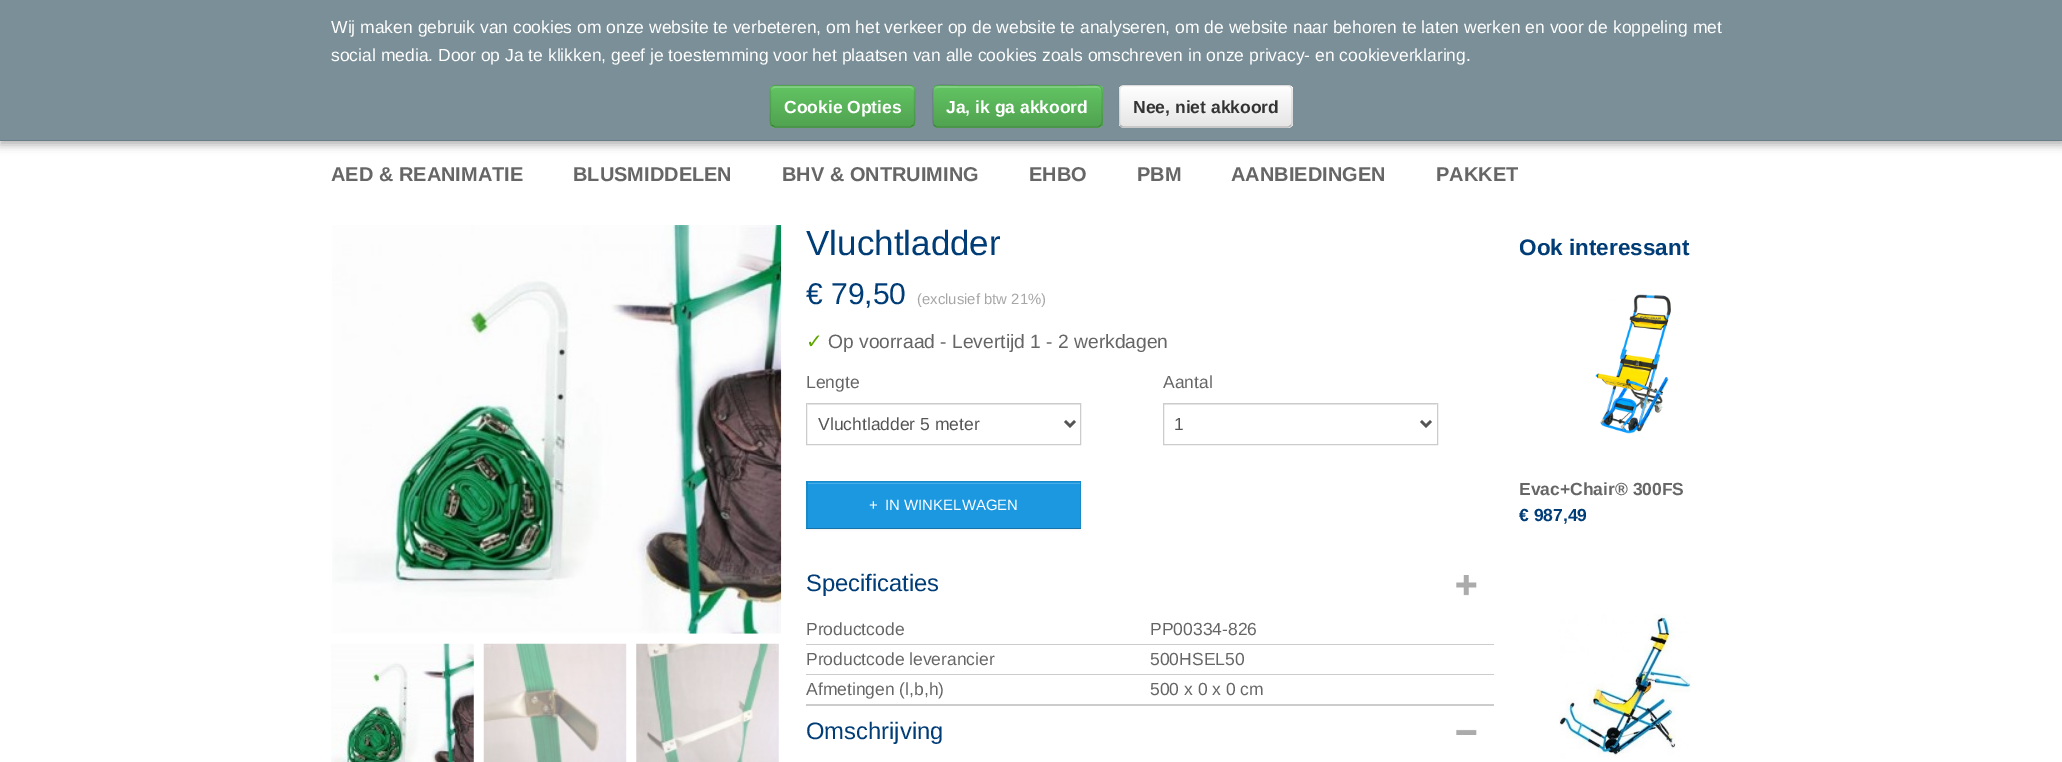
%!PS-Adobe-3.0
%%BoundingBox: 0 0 2062 762
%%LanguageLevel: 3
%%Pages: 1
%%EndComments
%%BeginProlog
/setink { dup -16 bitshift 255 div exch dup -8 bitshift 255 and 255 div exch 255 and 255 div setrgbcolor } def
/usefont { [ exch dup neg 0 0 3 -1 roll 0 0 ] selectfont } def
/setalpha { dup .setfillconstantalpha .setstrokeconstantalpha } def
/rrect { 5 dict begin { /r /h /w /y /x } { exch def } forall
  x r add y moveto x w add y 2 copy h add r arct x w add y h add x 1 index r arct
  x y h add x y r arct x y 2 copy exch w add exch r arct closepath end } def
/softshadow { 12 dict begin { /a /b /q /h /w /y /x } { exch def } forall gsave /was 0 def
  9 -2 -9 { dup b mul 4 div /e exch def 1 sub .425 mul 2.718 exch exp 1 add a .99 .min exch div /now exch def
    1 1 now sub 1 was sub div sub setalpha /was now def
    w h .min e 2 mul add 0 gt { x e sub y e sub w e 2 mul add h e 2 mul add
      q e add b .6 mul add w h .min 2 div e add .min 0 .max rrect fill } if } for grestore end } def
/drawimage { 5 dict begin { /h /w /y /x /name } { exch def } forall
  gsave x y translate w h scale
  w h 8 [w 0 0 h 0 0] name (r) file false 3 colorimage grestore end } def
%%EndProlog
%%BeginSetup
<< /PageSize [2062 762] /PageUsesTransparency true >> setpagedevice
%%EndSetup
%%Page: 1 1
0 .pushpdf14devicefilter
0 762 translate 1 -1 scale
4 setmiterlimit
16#FFFFFF setink
0 0 2062 762 rectfill
16#000000 setink
0 4 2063 141 0 4.5 0.3 softshadow
16#7A8F98 setink
0 0 2062 140 rectfill
16#697E87 setink
0 140 2062 1 rectfill
/LiberationSans-Regular 17.5 usefont
16#FFFFFF setink
331 33 moveto (Wij maken gebruik van cookies om onze website te verbeteren, om het verkeer op de website te analyseren, om de website naar behoren te laten werken en voor de koppeling met) show
331 61 moveto (social media. Door op Ja te klikken, geef je toestemming voor het plaatsen van alle cookies zoals omschreven in onze privacy- en cookieverklaring.) show
16#5BB75B setink
770 85 145 43 5 rrect fill
gsave
770 85 145 43 5 rrect clip newpath
gsave 770 86 moveto 915 86 lineto 915 126 lineto 770 126 lineto closepath clip newpath
<< /ShadingType 2 /ColorSpace /DeviceRGB /Coords [843 86 843 126] /Extend [true true] /Function << /FunctionType 2 /Domain [0 1] /C0 [0.384 0.769 0.384] /C1 [0.318 0.639 0.318] /N 1 >> >> shfill grestore
grestore
16#81CF81 setink
775 88 moveto 910 88 lineto 912 88 914 89 914 91 curveto 914 90 lineto 914 88 912 86 910 86 curveto 775 86 lineto 773 86 771 88 771 90 curveto 771 91 lineto 771 89 773 88 775 88 curveto closepath fill
0.25 setalpha
16#000000 setink
1.2 setlinewidth
913 125.5 moveto 910.5 127 lineto 797.5 127 lineto 775 127 lineto 772 125.5 lineto stroke
0.1 setalpha
772 125.5 moveto 769 123 770.5 114.5 770.5 111.5 curveto 770.5 95.5 lineto 770.5 92 769.5 85.5 775 85.5 curveto 910 85.5 lineto 915.5 85.5 914.5 92 914.5 95.5 curveto 914.5 111.5 lineto 914.5 114.5 916 123 913 125.5 curveto stroke
/LiberationSans-Bold 17.5 usefont
1 setalpha
16#FFFFFF setink
784 113 moveto (Cookie Opties) show
16#5BB75B setink
933 85 170 43 5 rrect fill
gsave
933 85 170 43 5 rrect clip newpath
gsave 933 86 moveto 1103 86 lineto 1103 126 lineto 933 126 lineto closepath clip newpath
<< /ShadingType 2 /ColorSpace /DeviceRGB /Coords [1018 86 1018 126] /Extend [true true] /Function << /FunctionType 2 /Domain [0 1] /C0 [0.384 0.769 0.384] /C1 [0.318 0.639 0.318] /N 1 >> >> shfill grestore
grestore
16#81CF81 setink
938 88 moveto 1098 88 lineto 1100 88 1101 89 1101 91 curveto 1101 90 lineto 1101 88 1099 86 1097 86 curveto 938 86 lineto 936 86 934 88 934 90 curveto 934 91 lineto 934 89 935 88 938 88 curveto closepath fill
0.25 setalpha
16#000000 setink
1100.5 125.5 moveto 1100 126.5 1098.5 127 1097.5 127 curveto 937.5 127 lineto 936.5 127 935 126.5 934.5 125.5 curveto stroke
0.1 setalpha
934.5 125.5 moveto 931.5 123 933 114.5 933 111.5 curveto 933 79 928 85.5 964 85.5 curveto 1071 85.5 lineto 1107 85.5 1102 79 1102 111.5 curveto 1102 114.5 1103.5 123 1100.5 125.5 curveto stroke
1 setalpha
16#FFFFFF setink
946 113 moveto (Ja, ik ga akkoord) show
16#F5F5F5 setink
1119 85 174 43 5 rrect fill
gsave
1119 85 174 43 5 rrect clip newpath
gsave 1119 86 moveto 1293 86 lineto 1293 126 lineto 1119 126 lineto closepath clip newpath
<< /ShadingType 2 /ColorSpace /DeviceRGB /Coords [1206 86 1206 126] /Extend [true true] /Function << /FunctionType 2 /Domain [0 1] /C0 [1 1 1] /C1 [0.902 0.902 0.902] /N 1 >> >> shfill grestore
grestore
0.25 setalpha
16#000000 setink
1290.5 125.5 moveto 1290 126.5 1288.5 127 1287.5 127 curveto 1124 127 lineto 1122.5 127 1121.5 126.5 1120.5 125.5 curveto stroke
0.1 setalpha
1120.5 125.5 moveto 1120 125 1119.5 123.5 1119.5 122.5 curveto 1119.5 90 lineto 1119.5 89 1120 87.5 1120.5 87 curveto 1121.5 86 1122.5 85.5 1124 85.5 curveto 1287.5 85.5 lineto 1288.5 85.5 1290 86 1290.5 87 curveto 1291.5 87.5 1292 89 1292 90 curveto 1292 122.5 lineto 1292 123.5 1291.5 125 1290.5 125.5 curveto stroke
1 setalpha
16#333333 setink
1133 113 moveto (Nee, niet akkoord) show
/LiberationSans-Bold 20 usefont
16#666666 setink
[
    [(AED & REANIMATIE) 331 181]
    [(BLUSMIDDELEN) 573 181]
    [(BHV & ONTRUIMING) 782 181]
    [(EHBO) 1029 181]
    [(PBM) 1137 181]
    [(AANBIEDINGEN) 1231 181]
    [(PAKKET) 1436 181]
] { aload pop moveto show } forall
(img1.raw) 332 225 450 409 drawimage
(img2.raw) 331 643 143 119 drawimage
(img3.raw) 483 643 144 119 drawimage
(img4.raw) 636 643 143 119 drawimage
/LiberationSans-Regular 35 usefont
16#003C76 setink
806 255 moveto (Vluchtladder) show
/LiberationSans-Regular 30 usefont
806 304 moveto (€ 79,50) show
/LiberationSans-Regular 14.9 usefont
16#A6A6A6 setink
917 304 moveto (\(exclusief btw 21%\)) show
/DejaVuSans-Regular 20 usefont
16#5EA600 setink
806 348 moveto (✓) show
/LiberationSans-Regular 19.25 usefont
16#666666 setink
828 348 moveto (Op voorraad - Levertijd 1 - 2 werkdagen) show
/LiberationSans-Regular 17.5 usefont
806 388 moveto (Lengte) show
16#ECECEC setink
808 404 272 1 rectfill
16#CCCCCC setink
1 setlinewidth
806.5 403.5 274 41 rectstroke
16#555555 setink
2.5 setlinewidth
1065 421 moveto 1070 426 lineto 1075 421 lineto stroke
818 430 moveto (Vluchtladder 5 meter) show
16#666666 setink
1163 388 moveto (Aantal) show
16#ECECEC setink
1164 404 272 1 rectfill
16#CCCCCC setink
1 setlinewidth
1163.5 403.5 274 41 rectstroke
16#555555 setink
2.5 setlinewidth
1421 421 moveto 1426 426 lineto 1431 421 lineto stroke
1174 430 moveto (1) show
16#000000 setink
806 483 275 47 0 1 0.05 softshadow
16#1B98E0 setink
806 481 275 48 rectfill
16#49ADE6 setink
808 483 272 1 rectfill
16#1889CA setink
806 481 moveto 1081 481 lineto 1080 482 lineto 808 482 lineto closepath fill
0.1 setalpha
16#000000 setink
1081 481 moveto 1081 529 lineto 1080 528 lineto 1080 482 lineto closepath fill
0.25 setalpha
1081 529 moveto 806 529 lineto 808 528 lineto 1080 528 lineto closepath fill
0.1 setalpha
806 529 moveto 806 481 lineto 808 482 lineto 808 528 lineto closepath fill
/LiberationSans-Regular 15 usefont
1 setalpha
16#FFFFFF setink
869 510 moveto (+) show
885 510 moveto (IN WINKELWAGEN) show
16#CCCCCC setink
806 704 688 2 rectfill
(img5.raw) 1456 575 21 21 drawimage
/LiberationSans-Regular 23.75 usefont
16#003C76 setink
806 591 moveto (Specificaties) show
16#CCCCCC setink
806 644 688 1 rectfill
/LiberationSans-Regular 17.5 usefont
16#666666 setink
806 635 moveto (Productcode) show
1150 635 moveto (PP00334-826) show
16#CCCCCC setink
806 674 688 1 rectfill
16#666666 setink
[
    [(Productcode leverancier) 806 665]
    [(500HSEL50) 1150 665]
    [(Afmetingen \(l,b,h\)) 806 695]
    [(500 x 0 x 0 cm) 1150 695]
] { aload pop moveto show } forall
(img6.raw) 1456 729 21 6 drawimage
/LiberationSans-Regular 23.75 usefont
16#003C76 setink
806 739 moveto (Omschrijving) show
/LiberationSans-Bold 22.5 usefont
1519 255 moveto (Ook interessant) show
(img7.raw) 1595 294 76 140 drawimage
/LiberationSans-Bold 17.5 usefont
16#666666 setink
1519 495 moveto (Evac+Chair® 300FS) show
16#003C76 setink
1519 521 moveto (€ 987,49) show
(img8.raw) 1559 614 132 144 drawimage
.poppdf14devicefilter showpage
%%EOF
